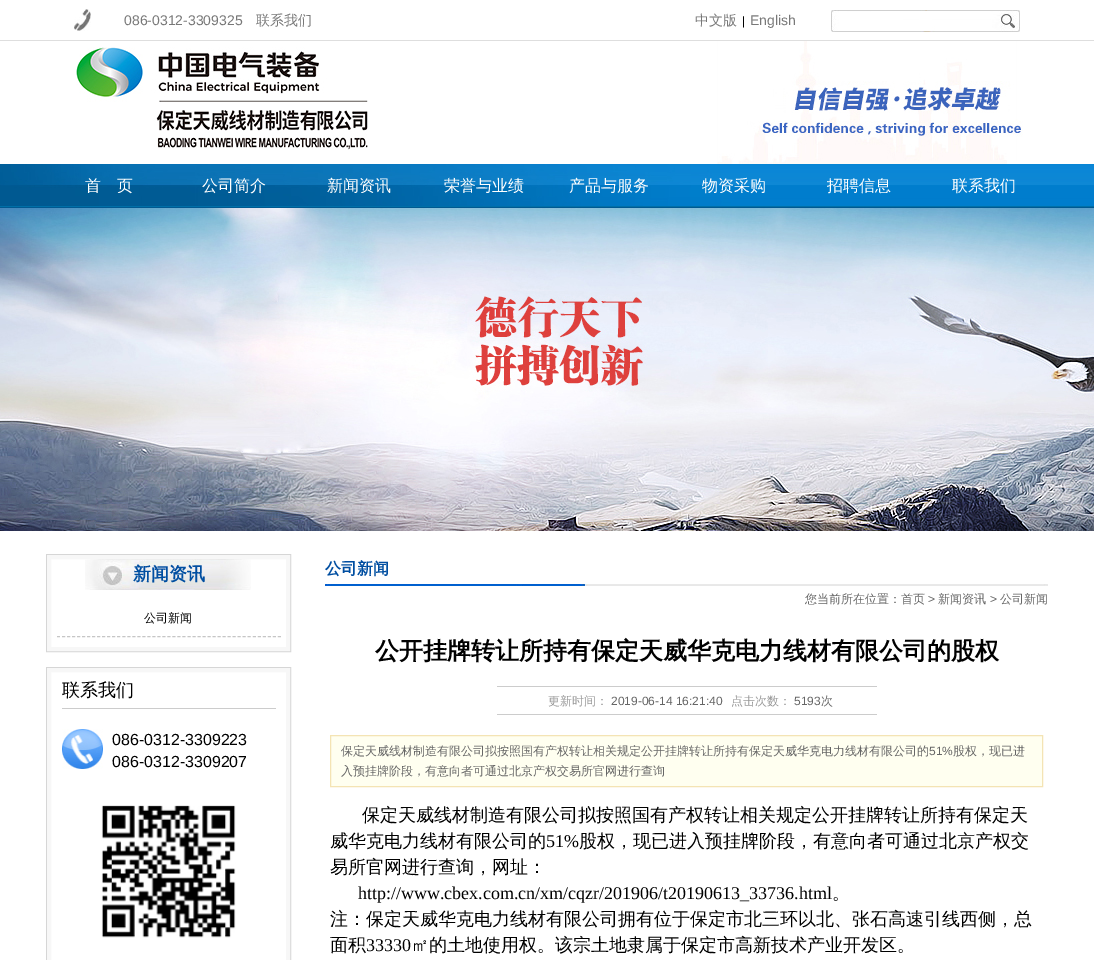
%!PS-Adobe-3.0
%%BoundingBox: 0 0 1094 960
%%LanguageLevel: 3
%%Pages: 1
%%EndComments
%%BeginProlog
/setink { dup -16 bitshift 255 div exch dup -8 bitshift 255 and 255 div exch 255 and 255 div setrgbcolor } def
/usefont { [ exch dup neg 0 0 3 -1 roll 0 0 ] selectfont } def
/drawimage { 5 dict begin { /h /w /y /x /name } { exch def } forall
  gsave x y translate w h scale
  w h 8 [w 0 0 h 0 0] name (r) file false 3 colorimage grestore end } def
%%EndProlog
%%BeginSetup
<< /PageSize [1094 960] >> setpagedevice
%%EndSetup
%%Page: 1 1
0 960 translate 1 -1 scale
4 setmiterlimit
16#FFFFFF setink
0 0 1094 960 rectfill
16#DEDEDE setink
0 40 1094 1 rectfill
(img1.raw) 74 9 17 22 drawimage
/LiberationSans-Regular 14 usefont
16#787878 setink
124 25 moveto (086-0312-3309325) show
/WenQuanYiZenHei-Medium 14 usefont
256 25 moveto (联系我们) show
695 25 moveto (中文版) show
/LiberationSans-Regular 12 usefont
16#000000 setink
742 25 moveto (|) show
/LiberationSans-Regular 14 usefont
16#787878 setink
750 25 moveto (English) show
(img2.raw) 831 10 189 22 drawimage
16#FFFFFF setink
919 11 13 20 rectfill
(img3.raw) 76 47 292 103 drawimage
(img4.raw) 717 41 306 123 drawimage
(img5.raw) 0 164 1094 44 drawimage
/WenQuanYiZenHei-Medium 16 usefont
[
    [(首　页) 85 191]
    [(公司简介) 202 191]
    [(新闻资讯) 327 191]
    [(荣誉与业绩) 444 191]
    [(产品与服务) 569 191]
    [(物资采购) 702 191]
    [(招聘信息) 827 191]
    [(联系我们) 952 191]
] { aload pop moveto show } forall
(img6.raw) 0 208 1094 323 drawimage
16#D6D6D6 setink
46.5 554.5 244 97 rectstroke
16#F7F7F7 setink
4 setlinewidth
49 557 239 92 rectstroke
(img7.raw) 85 559 166 31 drawimage
/WenQuanYiZenHei-Bold 18 usefont
16#004EA1 setink
133 580 moveto (新闻资讯) show
16#C6C6C6 setink
1 setlinewidth
[3 2.02] 0 setdash
57 636.5 moveto 281 636.5 lineto stroke
/WenQuanYiZenHei-Medium 12 usefont
16#000000 setink
144 622 moveto (公司新闻) show
16#D6D6D6 setink
[] 0 setdash
46.5 667.5 244 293 rectstroke
16#F7F7F7 setink
4 setlinewidth
49 670 239 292 rectstroke
16#CCCCCC setink
62 708 214 1 rectfill
/WenQuanYiZenHei-Medium 18 usefont
16#000000 setink
62 696 moveto (联系我们) show
(img8.raw) 62 729 41 40 drawimage
/LiberationSans-Regular 16 usefont
112 745 moveto (086-0312-3309223) show
112 767 moveto (086-0312-3309207) show
(img9.raw) 101 805 135 133 drawimage
(img10.raw) 325 584 723 2 drawimage
/WenQuanYiZenHei-Bold 16 usefont
16#004EA1 setink
325 574 moveto (公司新闻) show
/WenQuanYiZenHei-Medium 12 usefont
16#666666 setink
805 603 moveto (您当前所在位置：首页) show
/LiberationSans-Regular 12 usefont
928 603 moveto (>) show
/WenQuanYiZenHei-Medium 12 usefont
938 603 moveto (新闻资讯) show
/LiberationSans-Regular 12 usefont
990 603 moveto (>) show
/WenQuanYiZenHei-Medium 12 usefont
1000 603 moveto (公司新闻) show
/WenQuanYiZenHei-Bold 24 usefont
16#000000 setink
375 659 moveto (公开挂牌转让所持有保定天威华克电力线材有限公司的股权) show
16#CCCCCC setink
497 686 380 1 rectfill
497 714 380 1 rectfill
/WenQuanYiZenHei-Medium 12 usefont
16#999999 setink
548 705 moveto (更新时间：) show
/LiberationSans-Regular 12 usefont
16#666666 setink
611 705 moveto (2019-06-14 16:21:40) show
/WenQuanYiZenHei-Medium 12 usefont
16#999999 setink
731 705 moveto (点击次数：) show
/LiberationSans-Regular 12 usefont
16#666666 setink
794 705 moveto (5193) show
/WenQuanYiZenHei-Medium 12 usefont
821 705 moveto (次) show
16#FFFFF0 setink
330.5 735.5 moveto 1042.5 735.5 lineto 1042.5 786.5 lineto 330.5 786.5 lineto closepath gsave fill grestore
16#F4E4B4 setink
1 setlinewidth
stroke
16#666666 setink
341 755 moveto (保定天威线材制造有限公司拟按照国有产权转让相关规定公开挂牌转让所持有保定天威华克电力线材有限公司的) show
/LiberationSans-Regular 12 usefont
929 755 moveto (51%) show
/WenQuanYiZenHei-Medium 12 usefont
953 755 moveto (股权，现已进) show
341 775 moveto (入预挂牌阶段，有意向者可通过北京产权交易所官网进行查询) show
/WenQuanYiZenHei-Medium 18 usefont
16#000000 setink
362 821 moveto (保定天威线材制造有限公司拟按照国有产权转让相关规定公开挂牌转让所持有保定天) show
330 847 moveto (威华克电力线材有限公司的) show
/LiberationSerif-Regular 18 usefont
546 847 moveto (51%) show
/WenQuanYiZenHei-Medium 18 usefont
579 847 moveto (股权，现已进入预挂牌阶段，有意向者可通过北京产权交) show
330 873 moveto (易所官网进行查询，网址：) show
/LiberationSerif-Regular 18 usefont
358 899 moveto (http://www.cbex.com.cn/xm/cqzr/201906/t20190613_33736.html) show
/WenQuanYiZenHei-Medium 18 usefont
[
    [(。) 832 899]
    [(注：保定天威华克电力线材有限公司拥有位于保定市北三环以北、张石高速引线西侧，总) 330 925]
    [(面积) 330 951]
] { aload pop moveto show } forall
/LiberationSerif-Regular 18 usefont
366 951 moveto (33330) show
/WenQuanYiZenHei-Medium 18 usefont
411 951 moveto (㎡的土地使用权。该宗土地隶属于保定市高新技术产业开发区。) show
showpage
%%EOF
